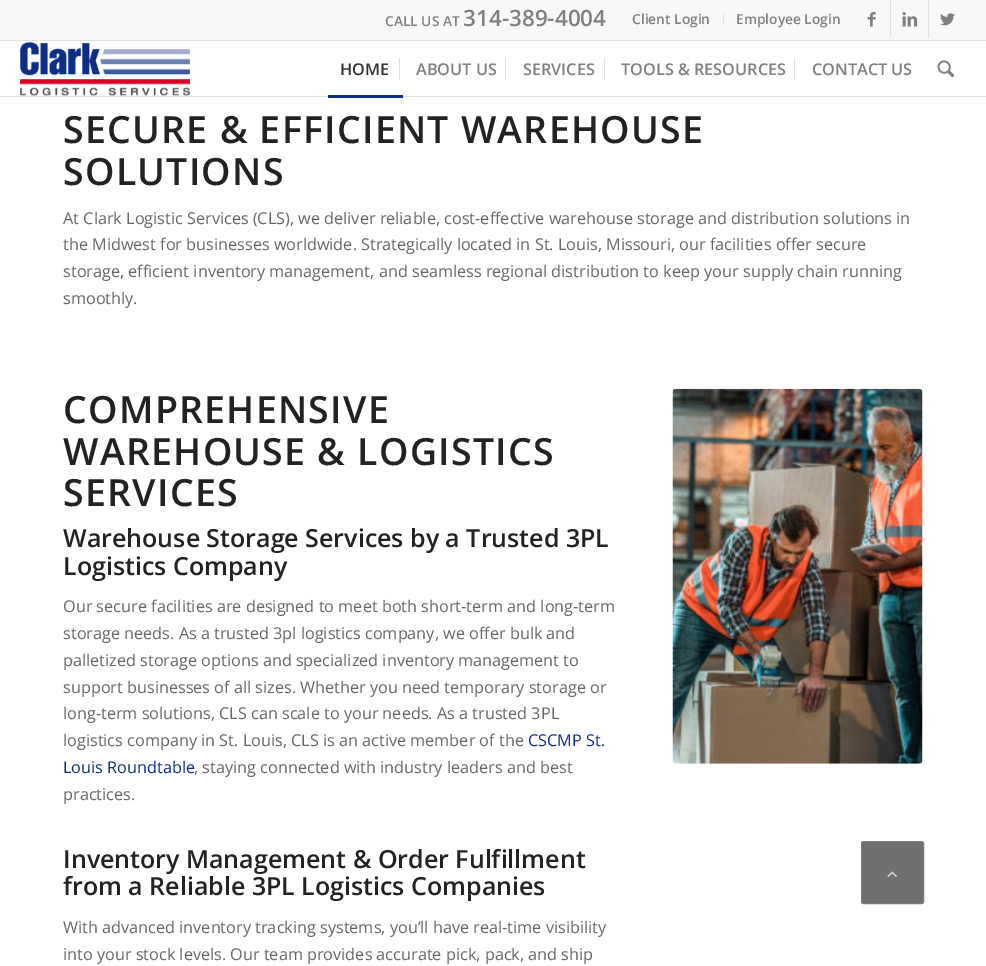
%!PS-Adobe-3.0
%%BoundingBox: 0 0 986 966
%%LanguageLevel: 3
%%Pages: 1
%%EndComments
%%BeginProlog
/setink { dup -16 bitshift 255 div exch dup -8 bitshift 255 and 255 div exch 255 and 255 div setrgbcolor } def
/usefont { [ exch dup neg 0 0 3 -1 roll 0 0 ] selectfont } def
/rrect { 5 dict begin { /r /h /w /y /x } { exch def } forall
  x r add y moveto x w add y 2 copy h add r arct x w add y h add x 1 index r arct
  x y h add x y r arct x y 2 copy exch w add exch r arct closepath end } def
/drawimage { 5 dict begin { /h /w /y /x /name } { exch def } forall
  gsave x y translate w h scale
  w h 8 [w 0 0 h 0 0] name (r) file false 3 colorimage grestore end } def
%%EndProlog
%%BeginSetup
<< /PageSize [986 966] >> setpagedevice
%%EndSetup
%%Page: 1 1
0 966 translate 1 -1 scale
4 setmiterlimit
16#FFFFFF setink
0 0 986 966 rectfill
16#F8F8F8 setink
0 0 986 40 rectfill
16#E1E1E1 setink
0 40 986 1 rectfill
/OpenSans-SemiBold 13.75 usefont
16#808080 setink
385 26 moveto (CALL US AT) show
/OpenSans-SemiBold 22.5 usefont
463 26 moveto (314-389-4004) show
16#E1E1E1 setink
723 13 1 12 rectfill
/OpenSans-SemiBold 13.75 usefont
16#808080 setink
632 24 moveto (Client Login) show
736 24 moveto (Employee Login) show
16#E1E1E1 setink
890 0 1 38 rectfill
(img1.raw) 867 12 9 15 drawimage
928 0 1 38 rectfill
(img2.raw) 902 12 16 15 drawimage
(img3.raw) 940 13 15 13 drawimage
0 96 986 1 rectfill
(img4.raw) 20 42 170 54 drawimage
/OpenSans-SemiBold 16.25 usefont
16#333333 setink
340 75 moveto (HOME) show
16#0E2E85 setink
328 95 75 3 rectfill
16#808080 setink
416 75 moveto (ABOUT US) show
16#E1E1E1 setink
399 58 1 22 rectfill
16#808080 setink
523 75 moveto (SERVICES) show
16#E1E1E1 setink
505 58 1 22 rectfill
16#808080 setink
621 75 moveto (TOOLS & RESOURCES) show
16#E1E1E1 setink
604 58 1 22 rectfill
16#808080 setink
812 75 moveto (CONTACT US) show
16#E1E1E1 setink
794 58 1 22 rectfill
(img5.raw) 937 60 18 18 drawimage
/OpenSans-SemiBold 37.5 usefont
16#222222 setink
63 143 moveto 1.25 0 (SECURE & EFFICIENT WAREHOUSE) ashow
63 185 moveto 1.25 0 (SOLUTIONS) ashow
/OpenSans-Regular 16.25 usefont
16#666666 setink
[
    [(At Clark Logistic Services \(CLS\), we deliver reliable, cost-effective warehouse storage and distribution solutions in) 63 224]
    [(the Midwest for businesses worldwide. Strategically located in St. Louis, Missouri, our facilities offer secure) 63 250]
    [(storage, efficient inventory management, and seamless regional distribution to keep your supply chain running) 63 277]
    [(smoothly.) 63 304]
] { aload pop moveto show } forall
/OpenSans-SemiBold 37.5 usefont
16#222222 setink
63 423 moveto 1.25 0 (COMPREHENSIVE) ashow
63 465 moveto 1.25 0 (WAREHOUSE & LOGISTICS) ashow
63 506 moveto 1.25 0 (SERVICES) ashow
/OpenSans-SemiBold 25 usefont
63 547 moveto (Warehouse Storage Services by a Trusted 3PL) show
63 575 moveto (Logistics Company) show
/OpenSans-Regular 16.25 usefont
16#666666 setink
[
    [(Our secure facilities are designed to meet both short-term and long-term) 63 612]
    [(storage needs. As a trusted 3pl logistics company, we offer bulk and) 63 639]
    [(palletized storage options and specialized inventory management to) 63 666]
    [(support businesses of all sizes. Whether you need temporary storage or) 63 693]
    [(long-term solutions, CLS can scale to your needs. As a trusted 3PL) 63 719]
    [(logistics company in St. Louis, CLS is an active member of the) 63 746]
] { aload pop moveto show } forall
16#0E2E85 setink
528 746 moveto (CSCMP St.) show
63 773 moveto (Louis Roundtable) show
16#666666 setink
194 773 moveto (, staying connected with industry leaders and best) show
63 800 moveto (practices.) show
/OpenSans-SemiBold 25 usefont
16#222222 setink
63 868 moveto (Inventory Management & Order Fulfillment) show
63 895 moveto (from a Reliable 3PL Logistics Companies) show
/OpenSans-Regular 16.25 usefont
16#666666 setink
63 933 moveto (With advanced inventory tracking systems, you’ll have real-time visibility) show
63 960 moveto (into your stock levels. Our team provides accurate pick, pack, and ship) show
(img6.raw) 672 388 251 376 drawimage
16#707070 setink
861.5 841.5 62 62 2 rrect gsave fill grestore
16#7C7C7C setink
stroke
(img7.raw) 887 871 10 6 drawimage
showpage
%%EOF
